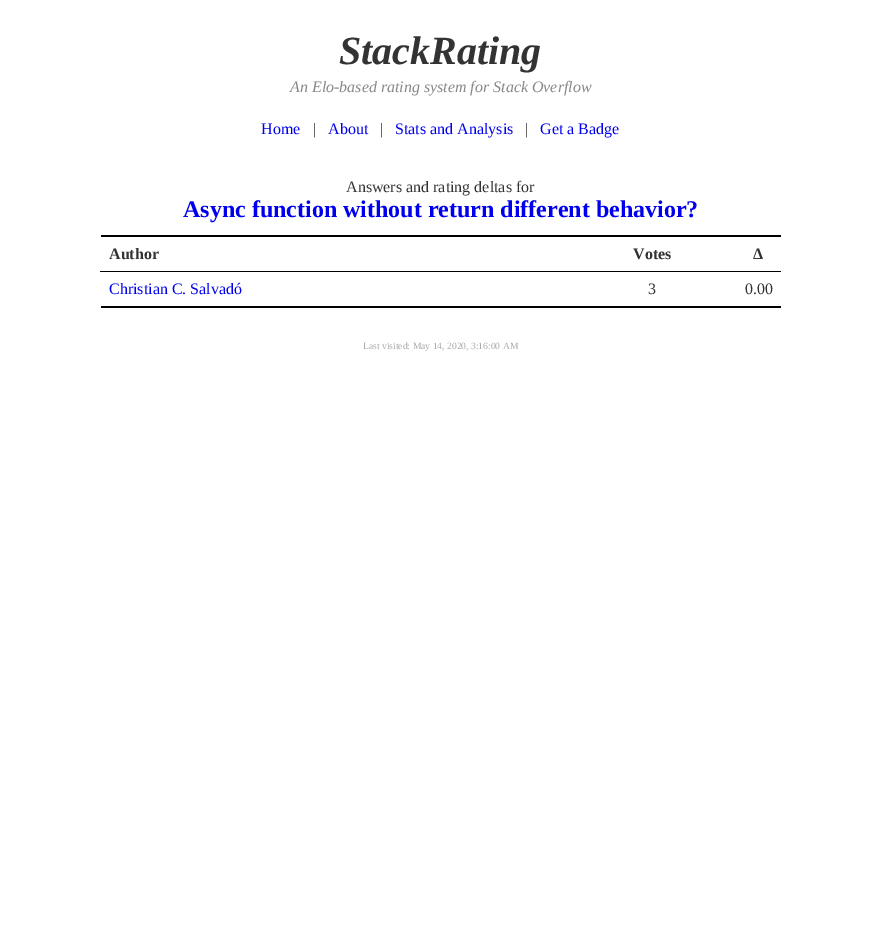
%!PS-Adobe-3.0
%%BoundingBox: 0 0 881 932
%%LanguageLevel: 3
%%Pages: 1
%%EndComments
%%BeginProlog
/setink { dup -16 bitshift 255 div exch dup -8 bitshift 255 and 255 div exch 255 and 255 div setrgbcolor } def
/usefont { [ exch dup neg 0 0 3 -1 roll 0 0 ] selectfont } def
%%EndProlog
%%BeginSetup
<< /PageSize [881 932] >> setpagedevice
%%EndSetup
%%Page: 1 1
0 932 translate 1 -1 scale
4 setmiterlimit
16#FFFFFF setink
0 0 881 932 rectfill
/LiberationSerif-BoldItalic 40 usefont
16#333333 setink
339 64 moveto (StackRating) show
/LiberationSerif-Italic 16 usefont
16#888888 setink
290 92 moveto (An Elo-based rating system for Stack Overflow) show
/LiberationSerif-Regular 16 usefont
16#0000EE setink
261 134 moveto (Home) show
16#333333 setink
313 134 moveto (|) show
16#0000EE setink
328 134 moveto (About) show
16#333333 setink
380 134 moveto (|) show
16#0000EE setink
395 134 moveto (Stats and Analysis) show
16#333333 setink
525 134 moveto (|) show
16#0000EE setink
540 134 moveto (Get a Badge) show
16#333333 setink
346 192 moveto (Answers and rating deltas for) show
/LiberationSerif-Bold 24 usefont
16#0000EE setink
183 217 moveto (Async function without return different behavior?) show
16#000000 setink
101 235 680 2 rectfill
101 306 680 2 rectfill
/LiberationSerif-Bold 16 usefont
16#333333 setink
109 259 moveto (Author) show
633 259 moveto (Votes) show
16#000000 setink
100 271 681 1 rectfill
16#333333 setink
753 259 moveto (Δ) show
/LiberationSerif-Regular 16 usefont
16#0000EE setink
109 294 moveto (Christian C. Salvadó) show
16#333333 setink
648 294 moveto (3) show
745 294 moveto (0.00) show
/LiberationSerif-Regular 9.6 usefont
16#AAAAAA setink
363 349 moveto (Last visited: May 14, 2020, 3:16:00 AM) show
showpage
%%EOF
